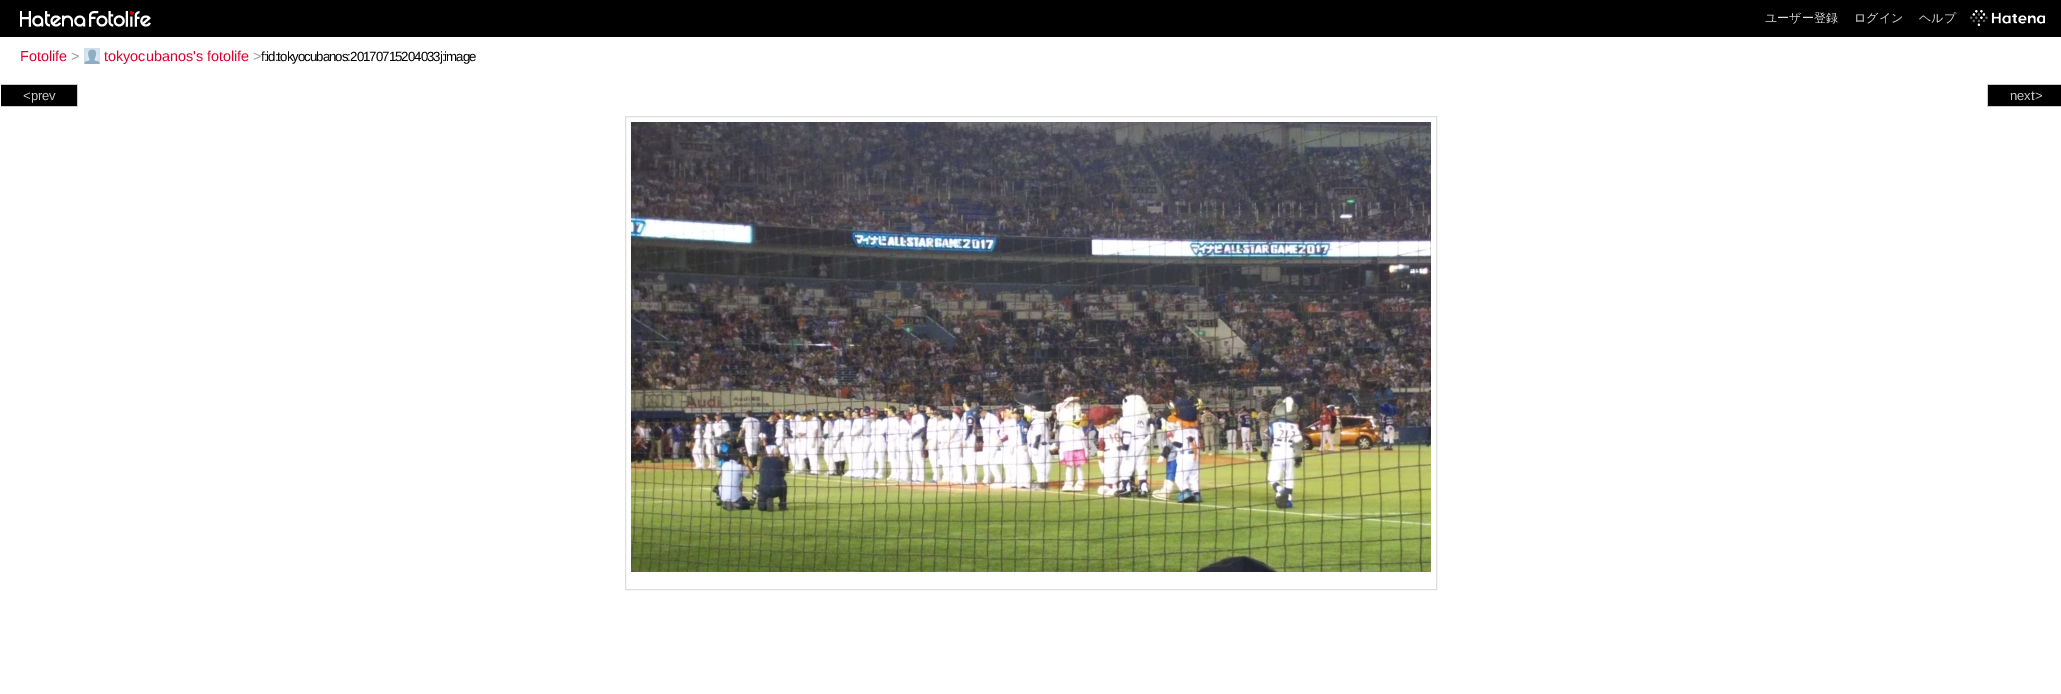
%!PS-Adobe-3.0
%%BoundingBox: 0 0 2061 694
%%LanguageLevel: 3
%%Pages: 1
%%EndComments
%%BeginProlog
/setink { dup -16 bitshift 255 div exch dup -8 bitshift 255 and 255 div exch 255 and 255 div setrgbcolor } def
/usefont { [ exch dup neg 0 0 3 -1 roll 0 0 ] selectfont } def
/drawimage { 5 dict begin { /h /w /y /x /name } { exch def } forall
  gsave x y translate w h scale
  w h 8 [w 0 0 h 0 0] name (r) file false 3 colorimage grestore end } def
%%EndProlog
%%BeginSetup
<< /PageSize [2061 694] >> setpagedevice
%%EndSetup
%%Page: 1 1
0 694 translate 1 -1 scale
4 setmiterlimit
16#FFFFFF setink
0 0 2061 694 rectfill
16#000000 setink
0 0 2061 37 rectfill
(img1.raw) 20 11 66 16 drawimage
(img2.raw) 89 11 62 16 drawimage
/WenQuanYiZenHei-Medium 12 usefont
16#DDDDDD setink
[
    [(ユーザー登録) 1765 22]
    [(ログイン) 1854 22]
    [(ヘルプ) 1919 22]
] { aload pop moveto show } forall
(img3.raw) 1970 10 75 16 drawimage
/LiberationSans-Regular 14.4 usefont
16#DE002F setink
20 61 moveto (Fotolife) show
16#999999 setink
71 61 moveto (>) show
(img4.raw) 84 48 16 16 drawimage
16#DE002F setink
104 61 moveto (tokyocubanos's fotolife) show
16#999999 setink
253 61 moveto (>) show
/LiberationSans-Regular 13.3 usefont
16#000000 setink
261 61 moveto -1 0 (f:id:tokyocubanos:20170715204033j:image) ashow
[
    [1 85 76 21 16#000000]
    [1 84 77 1 16#CCCCCC]
    [77 84 1 23 16#CCCCCC]
    [1 106 77 1 16#CCCCCC]
] { aload pop setink rectfill } forall
/LiberationSans-Regular 13 usefont
23 100 moveto (<prev) show
[
    [1988 85 73 21 16#000000]
    [1987 84 74 1 16#CCCCCC]
    [1987 106 74 1 16#CCCCCC]
    [1987 84 1 23 16#CCCCCC]
] { aload pop setink rectfill } forall
2010 100 moveto (next>) show
16#DEDEDE setink
625.5 116.5 811 473 rectstroke
(img5.raw) 631 122 800 450 drawimage
showpage
%%EOF
